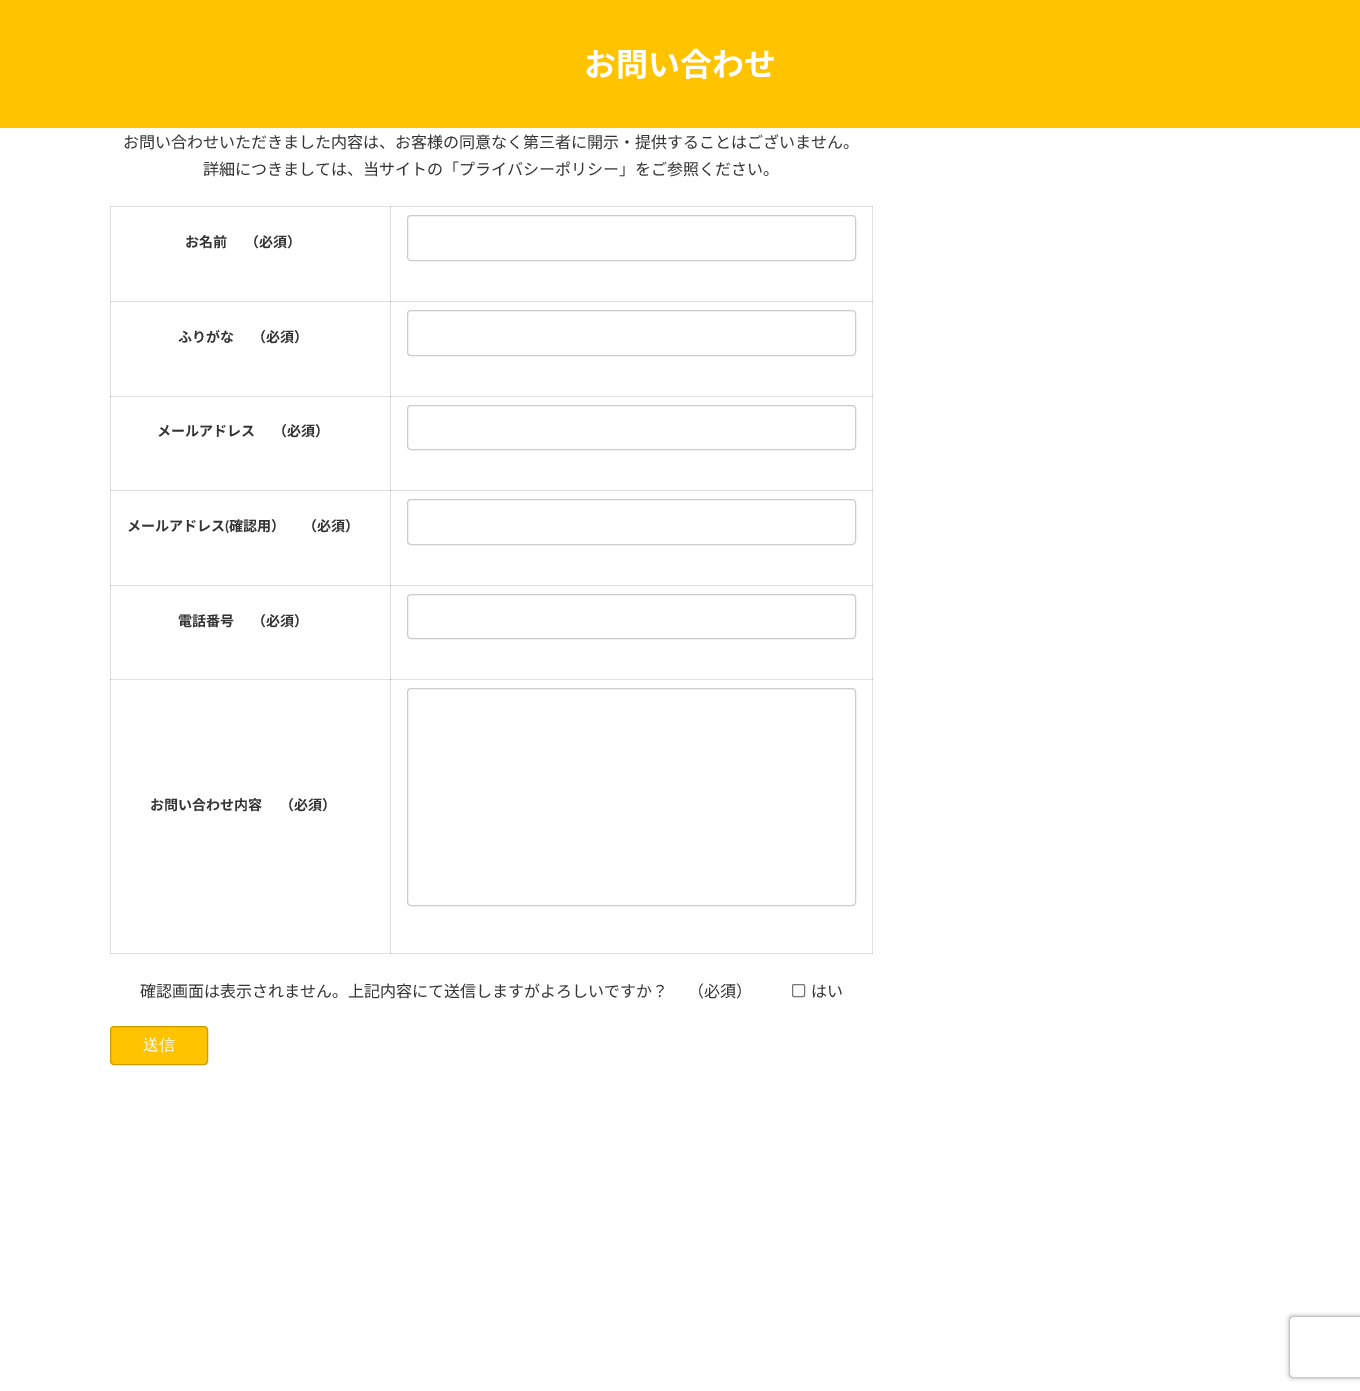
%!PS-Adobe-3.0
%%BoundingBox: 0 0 1360 1391
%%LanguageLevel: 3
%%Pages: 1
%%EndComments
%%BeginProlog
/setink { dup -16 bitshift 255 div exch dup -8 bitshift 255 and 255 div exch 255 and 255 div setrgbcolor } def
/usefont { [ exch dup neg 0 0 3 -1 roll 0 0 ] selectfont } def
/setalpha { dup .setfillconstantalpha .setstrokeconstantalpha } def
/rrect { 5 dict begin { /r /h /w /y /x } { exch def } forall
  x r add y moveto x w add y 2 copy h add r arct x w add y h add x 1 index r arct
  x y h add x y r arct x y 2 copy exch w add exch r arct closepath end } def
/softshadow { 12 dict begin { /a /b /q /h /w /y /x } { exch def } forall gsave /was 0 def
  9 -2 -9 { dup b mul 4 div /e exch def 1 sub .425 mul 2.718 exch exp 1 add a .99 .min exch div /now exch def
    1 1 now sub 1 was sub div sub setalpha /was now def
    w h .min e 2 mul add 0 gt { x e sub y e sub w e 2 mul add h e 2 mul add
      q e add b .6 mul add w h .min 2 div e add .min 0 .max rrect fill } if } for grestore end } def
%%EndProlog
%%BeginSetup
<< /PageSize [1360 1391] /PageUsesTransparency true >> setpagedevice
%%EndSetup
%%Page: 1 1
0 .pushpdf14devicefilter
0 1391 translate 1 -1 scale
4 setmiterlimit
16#FFFFFF setink
0 0 1360 1391 rectfill
[
    [390 206 1 96 16#E2E2E2]
    [110 301 281 1 16#E2E2E2]
    [390 301 1 96 16#E2E2E2]
    [390 301 483 1 16#E2E2E2]
    [390 301 1 1 16#9B9B9B]
    [110 396 281 1 16#E2E2E2]
    [390 396 1 95 16#E2E2E2]
    [390 396 483 1 16#E2E2E2]
    [390 396 1 1 16#9B9B9B]
    [110 490 281 1 16#E2E2E2]
    [390 490 1 96 16#E2E2E2]
    [390 490 483 1 16#E2E2E2]
    [390 490 1 1 16#9B9B9B]
    [110 585 281 1 16#E2E2E2]
    [390 585 1 95 16#E2E2E2]
    [390 585 483 1 16#E2E2E2]
    [390 585 1 1 16#9B9B9B]
    [110 679 281 1 16#E2E2E2]
    [390 679 1 275 16#E2E2E2]
    [390 679 483 1 16#E2E2E2]
    [390 679 1 1 16#9B9B9B]
    [110 206 1 748 16#E2E2E2]
    [110 301 1 1 16#BBBBBB]
    [110 396 1 1 16#BBBBBB]
    [110 490 1 1 16#BBBBBB]
    [110 585 1 1 16#BBBBBB]
    [110 679 1 1 16#BBBBBB]
    [110 953 763 1 16#E2E2E2]
    [390 953 1 1 16#BBBBBB]
    [110 953 1 1 16#C7C7C7]
    [872 206 1 748 16#E2E2E2]
    [872 301 1 1 16#BBBBBB]
    [872 396 1 1 16#BBBBBB]
    [872 490 1 1 16#BBBBBB]
    [872 585 1 1 16#BBBBBB]
    [872 679 1 1 16#BBBBBB]
    [872 953 1 1 16#C7C7C7]
    [0 0 1360 128 16#FFC300]
] { aload pop setink rectfill } forall
/NotoSansJP-Bold 32 usefont
16#FFFFFF setink
584 76 moveto (お問い合わせ) show
/NotoSansJP-Regular 16 usefont
16#333333 setink
123 148 moveto (お問い合わせいただきました内容は、お客様の同意なく第三者に開示・提供することはございません。) show
203 175 moveto (詳細につきましては、当サイトの「プライバシーポリシー」をご参照ください。) show
[
    [110 206 763 1 16#E2E2E2]
    [390 206 1 1 16#BBBBBB]
    [110 206 1 1 16#C7C7C7]
    [872 206 1 1 16#C7C7C7]
] { aload pop setink rectfill } forall
/NotoSansJP-Bold 14 usefont
16#333333 setink
185 247 moveto (お名前) show
245 247 moveto (（必須）) show
16#CCCCCC setink
407.5 215.5 448 45 3.5 rrect stroke
16#333333 setink
178 342 moveto (ふりがな) show
252 342 moveto (（必須）) show
16#CCCCCC setink
407.5 310.5 448 45 3.5 rrect stroke
16#333333 setink
157 436 moveto (メールアドレス) show
273 436 moveto (（必須）) show
16#CCCCCC setink
407.5 405.5 448 44 3.5 rrect stroke
16#333333 setink
127 531 moveto (メールアドレス) show
/Lato-Bold 14 usefont
225 531 moveto (\() show
/NotoSansJP-Bold 14 usefont
229 531 moveto (確認用）) show
303 531 moveto (（必須）) show
16#CCCCCC setink
407.5 499.5 448 45 3.5 rrect stroke
16#333333 setink
178 626 moveto (電話番号) show
252 626 moveto (（必須）) show
16#CCCCCC setink
407.5 594.5 448 44 3.5 rrect stroke
16#333333 setink
150 810 moveto (お問い合わせ内容) show
280 810 moveto (（必須）) show
16#CCCCCC setink
407.5 688.5 448 217 3.5 rrect stroke
/NotoSansJP-Regular 16 usefont
16#333333 setink
140 997 moveto (確認画面は表示されません。上記内容にて送信しますがよろしいですか？) show
688 997 moveto (（必須）) show
16#767676 setink
792.5 984.5 12 12 1.5 rrect stroke
16#333333 setink
811 997 moveto (はい) show
16#FFC300 setink
110.5 1026.5 97 38 3.5 rrect gsave fill grestore
16#CC9C00 setink
stroke
/WenQuanYiZenHei-Medium 16 usefont
16#FFFFFF setink
143 1050 moveto (送信) show
gsave
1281 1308 moveto 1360 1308 lineto 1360 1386 lineto 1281 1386 lineto closepath 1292 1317 moveto 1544 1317 lineto 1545 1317 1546 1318 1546 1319 curveto 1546 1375 lineto 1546 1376 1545 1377 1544 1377 curveto 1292 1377 lineto 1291 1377 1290 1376 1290 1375 curveto 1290 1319 lineto 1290 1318 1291 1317 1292 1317 curveto closepath eoclip newpath
16#808080 setink
1290 1317 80 60 2 2.5 1 softshadow
grestore
.poppdf14devicefilter showpage
%%EOF
